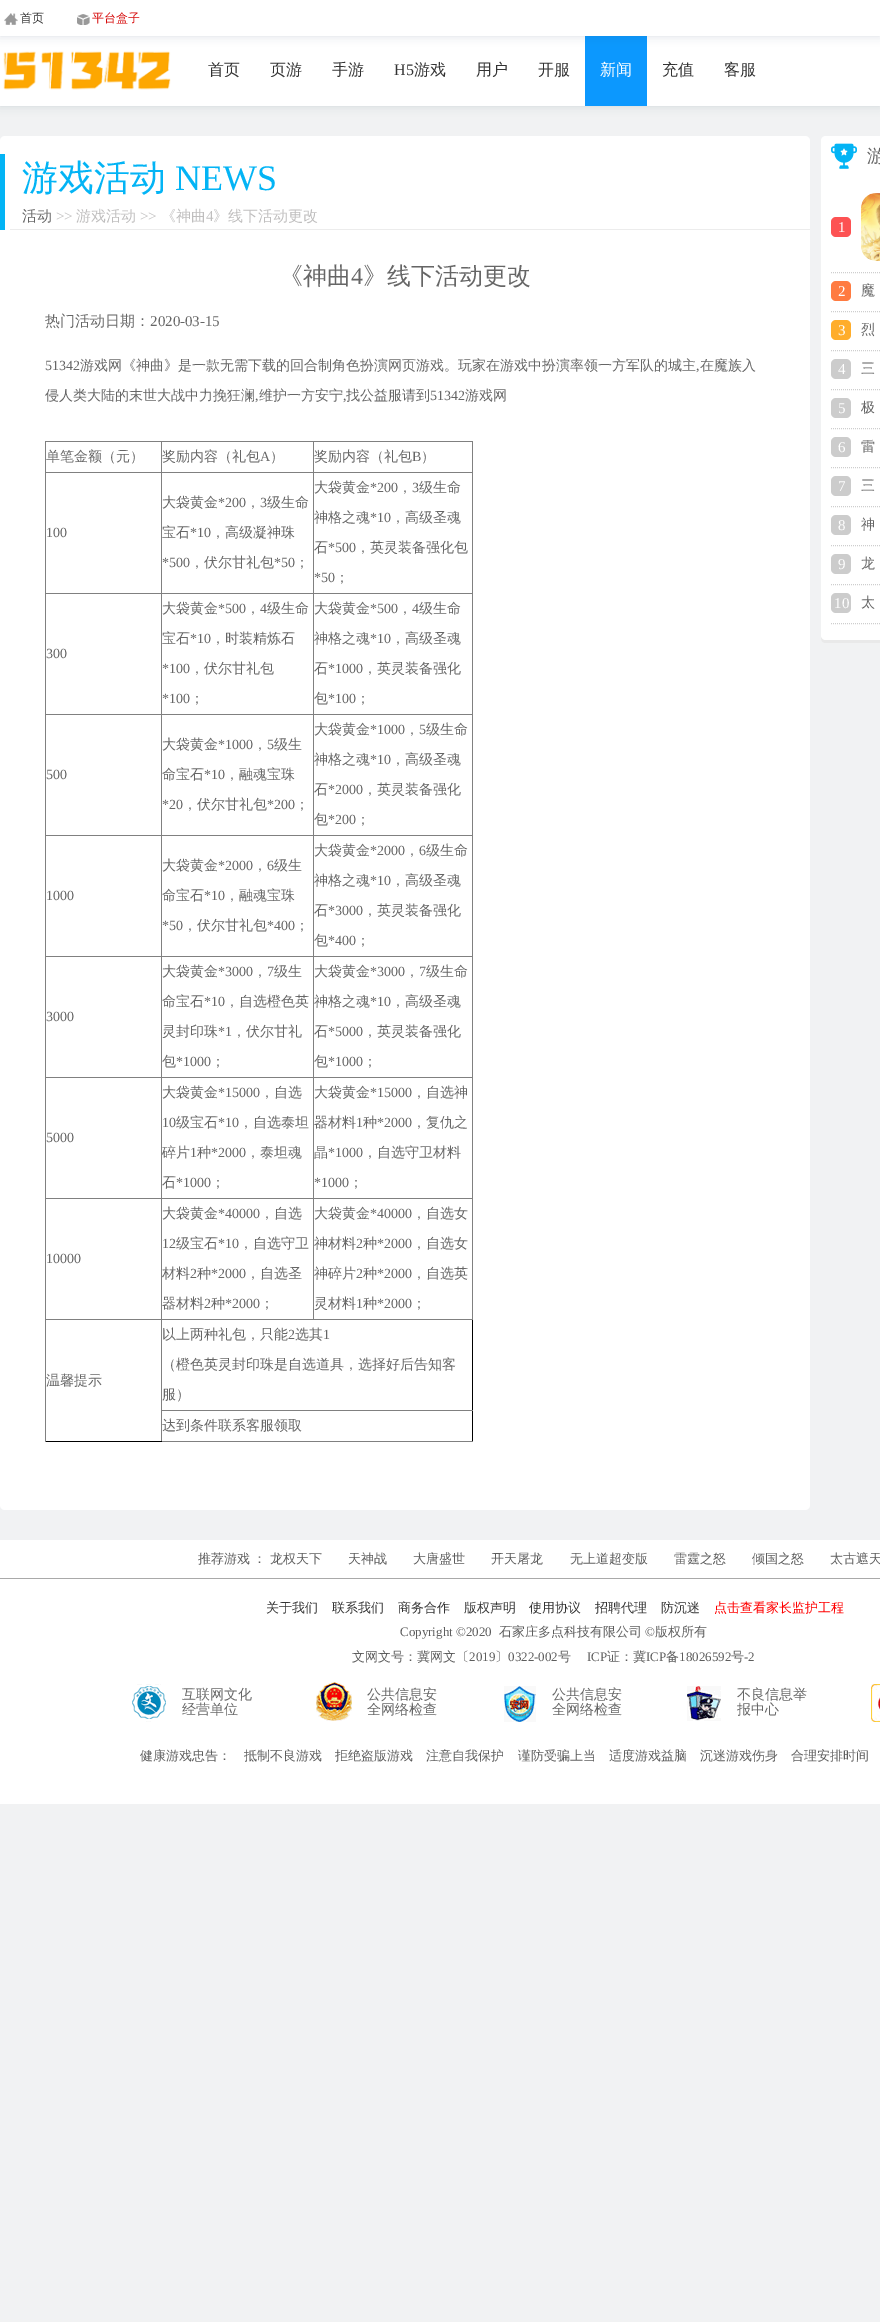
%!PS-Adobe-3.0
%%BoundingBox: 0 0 880 2322
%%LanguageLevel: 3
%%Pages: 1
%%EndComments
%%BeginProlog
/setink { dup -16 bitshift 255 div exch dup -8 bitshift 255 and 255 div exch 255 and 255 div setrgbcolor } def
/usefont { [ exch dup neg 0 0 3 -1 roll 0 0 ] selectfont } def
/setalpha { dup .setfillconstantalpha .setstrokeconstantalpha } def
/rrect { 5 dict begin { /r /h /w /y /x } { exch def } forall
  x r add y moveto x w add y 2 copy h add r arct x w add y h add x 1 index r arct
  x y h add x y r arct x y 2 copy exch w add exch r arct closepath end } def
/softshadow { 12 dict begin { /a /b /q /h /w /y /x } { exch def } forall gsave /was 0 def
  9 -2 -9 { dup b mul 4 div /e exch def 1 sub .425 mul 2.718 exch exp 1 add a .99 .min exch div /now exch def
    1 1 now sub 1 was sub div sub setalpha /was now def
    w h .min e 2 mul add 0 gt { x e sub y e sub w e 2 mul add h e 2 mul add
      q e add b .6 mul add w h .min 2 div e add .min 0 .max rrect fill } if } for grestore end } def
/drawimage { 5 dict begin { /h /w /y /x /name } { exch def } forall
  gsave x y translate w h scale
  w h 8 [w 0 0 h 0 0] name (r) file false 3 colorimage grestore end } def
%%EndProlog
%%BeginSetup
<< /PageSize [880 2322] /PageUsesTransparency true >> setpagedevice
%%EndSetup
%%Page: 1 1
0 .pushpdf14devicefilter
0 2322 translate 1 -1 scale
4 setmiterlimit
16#F1F2F3 setink
0 0 880 2322 rectfill
16#1F3252 setink
0 36 880 70 0 5 0.16 softshadow
16#FFFFFF setink
0 36 880 70 rectfill
(img3.raw) 3 51 168 39 drawimage
16#0C98FE setink
585 36 62 70 rectfill
16#1F3252 setink
0 0 880 36 0 5 0.16 softshadow
16#FFFFFF setink
0 0 880 36 rectfill
(img1.raw) 4 13 14 12 drawimage
/WenQuanYiZenHei-Medium 12 usefont
16#333333 setink
20 22 moveto (首页) show
(img2.raw) 77 14 13 11 drawimage
16#D50606 setink
92 22 moveto (平台盒子) show
/WenQuanYiZenHei-Medium 16 usefont
16#333333 setink
[
    [(首页) 208 75]
    [(页游) 270 75]
    [(手游) 332 75]
] { aload pop moveto show } forall
/LiberationSerif-Regular 16 usefont
394 75 moveto (H5) show
/WenQuanYiZenHei-Medium 16 usefont
[
    [(游戏) 414 75]
    [(用户) 476 75]
    [(开服) 538 75]
] { aload pop moveto show } forall
16#FFFFFF setink
600 75 moveto (新闻) show
16#333333 setink
662 75 moveto (充值) show
724 75 moveto (客服) show
16#FFFFFF setink
0 136 810 1374 5 rrect fill
16#03B4F5 setink
0 154 5 76 rectfill
/WenQuanYiZenHei-Medium 36 usefont
22 190 moveto (游戏活动) show
/LiberationSerif-Regular 36 usefont
175 190 moveto (NEWS) show
16#ECECEC setink
10 229 800 1 rectfill
/WenQuanYiZenHei-Medium 15 usefont
16#666666 setink
22 221 moveto (活动) show
/LiberationSerif-Regular 15 usefont
16#BFBEBE setink
56 221 moveto (>>) show
/WenQuanYiZenHei-Medium 15 usefont
76 221 moveto (游戏活动) show
/LiberationSerif-Regular 15 usefont
140 221 moveto (>>) show
/WenQuanYiZenHei-Medium 15 usefont
161 221 moveto (《神曲) show
/LiberationSerif-Regular 15 usefont
206 221 moveto (4) show
/WenQuanYiZenHei-Medium 15 usefont
213 221 moveto (》线下活动更改) show
/WenQuanYiZenHei-Medium 24 usefont
16#666666 setink
279 284 moveto (《神曲) show
/LiberationSerif-Regular 24 usefont
351 284 moveto (4) show
/WenQuanYiZenHei-Medium 24 usefont
363 284 moveto (》线下活动更改) show
/WenQuanYiZenHei-Medium 15 usefont
45 326 moveto (热门活动日期：) show
/LiberationSerif-Regular 15 usefont
150 326 moveto (2020-03-15) show
/LiberationSerif-Regular 14 usefont
45 370 moveto (51342) show
/WenQuanYiZenHei-Medium 14 usefont
80 370 moveto (游戏网《神曲》是一款无需下载的回合制角色扮演网页游戏。玩家在游戏中扮演率领一方军队的城主) show
/LiberationSerif-Regular 14 usefont
696 370 moveto (,) show
/WenQuanYiZenHei-Medium 14 usefont
700 370 moveto (在魔族入) show
45 400 moveto (侵人类大陆的末世大战中力挽狂澜) show
/LiberationSerif-Regular 14 usefont
255 400 moveto (,) show
/WenQuanYiZenHei-Medium 14 usefont
259 400 moveto (维护一方安宁) show
/LiberationSerif-Regular 14 usefont
343 400 moveto (,) show
/WenQuanYiZenHei-Medium 14 usefont
346 400 moveto (找公益服请到) show
/LiberationSerif-Regular 14 usefont
430 400 moveto (51342) show
/WenQuanYiZenHei-Medium 14 usefont
465 400 moveto (游戏网) show
[
    [45 441 428 1 16#808080]
    [472 441 1 757 16#808080]
    [45 441 1 878 16#808080]
] { aload pop setink rectfill } forall
16#666666 setink
46 461 moveto (单笔金额（元）) show
[
    [313 472 160 1 16#808080]
    [313 593 160 1 16#808080]
    [313 714 160 1 16#808080]
    [313 835 160 1 16#808080]
    [313 956 160 1 16#808080]
    [313 1077 160 1 16#808080]
    [313 1198 160 1 16#808080]
    [161 1319 312 1 16#808080]
    [313 1198 1 122 16#808080]
    [161 1198 153 1 16#808080]
    [313 1077 1 122 16#808080]
    [161 1077 153 1 16#808080]
    [313 956 1 122 16#808080]
    [161 956 153 1 16#808080]
    [313 835 1 122 16#808080]
    [161 835 153 1 16#808080]
    [313 714 1 122 16#808080]
    [161 714 153 1 16#808080]
    [313 593 1 122 16#808080]
    [161 593 153 1 16#808080]
    [313 472 1 122 16#808080]
    [161 472 153 1 16#808080]
    [472 1410 1 32 16#000000]
    [472 1319 1 92 16#000000]
    [161 1441 312 1 16#808080]
    [161 1410 1 32 16#808080]
    [161 1410 312 1 16#808080]
    [161 1319 1 92 16#808080]
    [45 1319 117 1 16#808080]
    [161 1198 1 122 16#808080]
    [45 1198 117 1 16#808080]
    [161 1077 1 122 16#808080]
    [45 1077 117 1 16#808080]
    [161 956 1 122 16#808080]
    [45 956 117 1 16#808080]
    [161 835 1 122 16#808080]
    [45 835 117 1 16#808080]
    [161 714 1 122 16#808080]
    [45 714 117 1 16#808080]
    [161 593 1 122 16#808080]
    [45 593 117 1 16#808080]
    [161 472 1 122 16#808080]
    [45 472 117 1 16#808080]
    [161 441 1 32 16#808080]
] { aload pop setink rectfill } forall
16#666666 setink
162 461 moveto (奖励内容（礼包) show
/LiberationSerif-Regular 14 usefont
260 461 moveto (A) show
/WenQuanYiZenHei-Medium 14 usefont
270 461 moveto (）) show
16#808080 setink
313 441 1 32 rectfill
16#666666 setink
314 461 moveto (奖励内容（礼包) show
/LiberationSerif-Regular 14 usefont
412 461 moveto (B) show
/WenQuanYiZenHei-Medium 14 usefont
421 461 moveto (）) show
/LiberationSerif-Regular 14 usefont
46 537 moveto (100) show
/WenQuanYiZenHei-Medium 14 usefont
162 507 moveto (大袋黄金) show
/LiberationSerif-Regular 14 usefont
218 507 moveto (*200) show
/WenQuanYiZenHei-Medium 14 usefont
246 507 moveto (，) show
/LiberationSerif-Regular 14 usefont
260 507 moveto (3) show
/WenQuanYiZenHei-Medium 14 usefont
267 507 moveto (级生命) show
162 537 moveto (宝石) show
/LiberationSerif-Regular 14 usefont
190 537 moveto (*10) show
/WenQuanYiZenHei-Medium 14 usefont
211 537 moveto (，高级凝神珠) show
/LiberationSerif-Regular 14 usefont
162 567 moveto (*500) show
/WenQuanYiZenHei-Medium 14 usefont
190 567 moveto (，伏尔甘礼包) show
/LiberationSerif-Regular 14 usefont
274 567 moveto (*50) show
/WenQuanYiZenHei-Medium 14 usefont
295 567 moveto (；) show
314 492 moveto (大袋黄金) show
/LiberationSerif-Regular 14 usefont
370 492 moveto (*200) show
/WenQuanYiZenHei-Medium 14 usefont
398 492 moveto (，) show
/LiberationSerif-Regular 14 usefont
412 492 moveto (3) show
/WenQuanYiZenHei-Medium 14 usefont
419 492 moveto (级生命) show
314 522 moveto (神格之魂) show
/LiberationSerif-Regular 14 usefont
370 522 moveto (*10) show
/WenQuanYiZenHei-Medium 14 usefont
391 522 moveto (，高级圣魂) show
314 552 moveto (石) show
/LiberationSerif-Regular 14 usefont
328 552 moveto (*500) show
/WenQuanYiZenHei-Medium 14 usefont
356 552 moveto (，英灵装备强化包) show
/LiberationSerif-Regular 14 usefont
314 582 moveto (*50) show
/WenQuanYiZenHei-Medium 14 usefont
335 582 moveto (；) show
/LiberationSerif-Regular 14 usefont
46 658 moveto (300) show
/WenQuanYiZenHei-Medium 14 usefont
162 613 moveto (大袋黄金) show
/LiberationSerif-Regular 14 usefont
218 613 moveto (*500) show
/WenQuanYiZenHei-Medium 14 usefont
246 613 moveto (，) show
/LiberationSerif-Regular 14 usefont
260 613 moveto (4) show
/WenQuanYiZenHei-Medium 14 usefont
267 613 moveto (级生命) show
162 643 moveto (宝石) show
/LiberationSerif-Regular 14 usefont
190 643 moveto (*10) show
/WenQuanYiZenHei-Medium 14 usefont
211 643 moveto (，时装精炼石) show
/LiberationSerif-Regular 14 usefont
162 673 moveto (*100) show
/WenQuanYiZenHei-Medium 14 usefont
190 673 moveto (，伏尔甘礼包) show
/LiberationSerif-Regular 14 usefont
162 703 moveto (*100) show
/WenQuanYiZenHei-Medium 14 usefont
190 703 moveto (；) show
314 613 moveto (大袋黄金) show
/LiberationSerif-Regular 14 usefont
370 613 moveto (*500) show
/WenQuanYiZenHei-Medium 14 usefont
398 613 moveto (，) show
/LiberationSerif-Regular 14 usefont
412 613 moveto (4) show
/WenQuanYiZenHei-Medium 14 usefont
419 613 moveto (级生命) show
314 643 moveto (神格之魂) show
/LiberationSerif-Regular 14 usefont
370 643 moveto (*10) show
/WenQuanYiZenHei-Medium 14 usefont
391 643 moveto (，高级圣魂) show
314 673 moveto (石) show
/LiberationSerif-Regular 14 usefont
328 673 moveto (*1000) show
/WenQuanYiZenHei-Medium 14 usefont
363 673 moveto (，英灵装备强化) show
314 703 moveto (包) show
/LiberationSerif-Regular 14 usefont
328 703 moveto (*100) show
/WenQuanYiZenHei-Medium 14 usefont
356 703 moveto (；) show
/LiberationSerif-Regular 14 usefont
46 779 moveto (500) show
/WenQuanYiZenHei-Medium 14 usefont
162 749 moveto (大袋黄金) show
/LiberationSerif-Regular 14 usefont
218 749 moveto (*1000) show
/WenQuanYiZenHei-Medium 14 usefont
253 749 moveto (，) show
/LiberationSerif-Regular 14 usefont
267 749 moveto (5) show
/WenQuanYiZenHei-Medium 14 usefont
274 749 moveto (级生) show
162 779 moveto (命宝石) show
/LiberationSerif-Regular 14 usefont
204 779 moveto (*10) show
/WenQuanYiZenHei-Medium 14 usefont
225 779 moveto (，融魂宝珠) show
/LiberationSerif-Regular 14 usefont
162 809 moveto (*20) show
/WenQuanYiZenHei-Medium 14 usefont
183 809 moveto (，伏尔甘礼包) show
/LiberationSerif-Regular 14 usefont
267 809 moveto (*200) show
/WenQuanYiZenHei-Medium 14 usefont
295 809 moveto (；) show
314 734 moveto (大袋黄金) show
/LiberationSerif-Regular 14 usefont
370 734 moveto (*1000) show
/WenQuanYiZenHei-Medium 14 usefont
405 734 moveto (，) show
/LiberationSerif-Regular 14 usefont
419 734 moveto (5) show
/WenQuanYiZenHei-Medium 14 usefont
426 734 moveto (级生命) show
314 764 moveto (神格之魂) show
/LiberationSerif-Regular 14 usefont
370 764 moveto (*10) show
/WenQuanYiZenHei-Medium 14 usefont
391 764 moveto (，高级圣魂) show
314 794 moveto (石) show
/LiberationSerif-Regular 14 usefont
328 794 moveto (*2000) show
/WenQuanYiZenHei-Medium 14 usefont
363 794 moveto (，英灵装备强化) show
314 824 moveto (包) show
/LiberationSerif-Regular 14 usefont
328 824 moveto (*200) show
/WenQuanYiZenHei-Medium 14 usefont
356 824 moveto (；) show
/LiberationSerif-Regular 14 usefont
46 900 moveto (1000) show
/WenQuanYiZenHei-Medium 14 usefont
162 870 moveto (大袋黄金) show
/LiberationSerif-Regular 14 usefont
218 870 moveto (*2000) show
/WenQuanYiZenHei-Medium 14 usefont
253 870 moveto (，) show
/LiberationSerif-Regular 14 usefont
267 870 moveto (6) show
/WenQuanYiZenHei-Medium 14 usefont
274 870 moveto (级生) show
162 900 moveto (命宝石) show
/LiberationSerif-Regular 14 usefont
204 900 moveto (*10) show
/WenQuanYiZenHei-Medium 14 usefont
225 900 moveto (，融魂宝珠) show
/LiberationSerif-Regular 14 usefont
162 930 moveto (*50) show
/WenQuanYiZenHei-Medium 14 usefont
183 930 moveto (，伏尔甘礼包) show
/LiberationSerif-Regular 14 usefont
267 930 moveto (*400) show
/WenQuanYiZenHei-Medium 14 usefont
295 930 moveto (；) show
314 855 moveto (大袋黄金) show
/LiberationSerif-Regular 14 usefont
370 855 moveto (*2000) show
/WenQuanYiZenHei-Medium 14 usefont
405 855 moveto (，) show
/LiberationSerif-Regular 14 usefont
419 855 moveto (6) show
/WenQuanYiZenHei-Medium 14 usefont
426 855 moveto (级生命) show
314 885 moveto (神格之魂) show
/LiberationSerif-Regular 14 usefont
370 885 moveto (*10) show
/WenQuanYiZenHei-Medium 14 usefont
391 885 moveto (，高级圣魂) show
314 915 moveto (石) show
/LiberationSerif-Regular 14 usefont
328 915 moveto (*3000) show
/WenQuanYiZenHei-Medium 14 usefont
363 915 moveto (，英灵装备强化) show
314 945 moveto (包) show
/LiberationSerif-Regular 14 usefont
328 945 moveto (*400) show
/WenQuanYiZenHei-Medium 14 usefont
356 945 moveto (；) show
/LiberationSerif-Regular 14 usefont
46 1021 moveto (3000) show
/WenQuanYiZenHei-Medium 14 usefont
162 976 moveto (大袋黄金) show
/LiberationSerif-Regular 14 usefont
218 976 moveto (*3000) show
/WenQuanYiZenHei-Medium 14 usefont
253 976 moveto (，) show
/LiberationSerif-Regular 14 usefont
267 976 moveto (7) show
/WenQuanYiZenHei-Medium 14 usefont
274 976 moveto (级生) show
162 1006 moveto (命宝石) show
/LiberationSerif-Regular 14 usefont
204 1006 moveto (*10) show
/WenQuanYiZenHei-Medium 14 usefont
225 1006 moveto (，自选橙色英) show
162 1036 moveto (灵封印珠) show
/LiberationSerif-Regular 14 usefont
218 1036 moveto (*1) show
/WenQuanYiZenHei-Medium 14 usefont
232 1036 moveto (，伏尔甘礼) show
162 1066 moveto (包) show
/LiberationSerif-Regular 14 usefont
176 1066 moveto (*1000) show
/WenQuanYiZenHei-Medium 14 usefont
211 1066 moveto (；) show
314 976 moveto (大袋黄金) show
/LiberationSerif-Regular 14 usefont
370 976 moveto (*3000) show
/WenQuanYiZenHei-Medium 14 usefont
405 976 moveto (，) show
/LiberationSerif-Regular 14 usefont
419 976 moveto (7) show
/WenQuanYiZenHei-Medium 14 usefont
426 976 moveto (级生命) show
314 1006 moveto (神格之魂) show
/LiberationSerif-Regular 14 usefont
370 1006 moveto (*10) show
/WenQuanYiZenHei-Medium 14 usefont
391 1006 moveto (，高级圣魂) show
314 1036 moveto (石) show
/LiberationSerif-Regular 14 usefont
328 1036 moveto (*5000) show
/WenQuanYiZenHei-Medium 14 usefont
363 1036 moveto (，英灵装备强化) show
314 1066 moveto (包) show
/LiberationSerif-Regular 14 usefont
328 1066 moveto (*1000) show
/WenQuanYiZenHei-Medium 14 usefont
363 1066 moveto (；) show
/LiberationSerif-Regular 14 usefont
46 1142 moveto (5000) show
/WenQuanYiZenHei-Medium 14 usefont
162 1097 moveto (大袋黄金) show
/LiberationSerif-Regular 14 usefont
218 1097 moveto (*15000) show
/WenQuanYiZenHei-Medium 14 usefont
260 1097 moveto (，自选) show
/LiberationSerif-Regular 14 usefont
162 1127 moveto (10) show
/WenQuanYiZenHei-Medium 14 usefont
176 1127 moveto (级宝石) show
/LiberationSerif-Regular 14 usefont
218 1127 moveto (*10) show
/WenQuanYiZenHei-Medium 14 usefont
239 1127 moveto (，自选泰坦) show
162 1157 moveto (碎片) show
/LiberationSerif-Regular 14 usefont
190 1157 moveto (1) show
/WenQuanYiZenHei-Medium 14 usefont
197 1157 moveto (种) show
/LiberationSerif-Regular 14 usefont
211 1157 moveto (*2000) show
/WenQuanYiZenHei-Medium 14 usefont
246 1157 moveto (，泰坦魂) show
162 1187 moveto (石) show
/LiberationSerif-Regular 14 usefont
176 1187 moveto (*1000) show
/WenQuanYiZenHei-Medium 14 usefont
211 1187 moveto (；) show
314 1097 moveto (大袋黄金) show
/LiberationSerif-Regular 14 usefont
370 1097 moveto (*15000) show
/WenQuanYiZenHei-Medium 14 usefont
412 1097 moveto (，自选神) show
314 1127 moveto (器材料) show
/LiberationSerif-Regular 14 usefont
356 1127 moveto (1) show
/WenQuanYiZenHei-Medium 14 usefont
363 1127 moveto (种) show
/LiberationSerif-Regular 14 usefont
377 1127 moveto (*2000) show
/WenQuanYiZenHei-Medium 14 usefont
412 1127 moveto (，复仇之) show
314 1157 moveto (晶) show
/LiberationSerif-Regular 14 usefont
328 1157 moveto (*1000) show
/WenQuanYiZenHei-Medium 14 usefont
363 1157 moveto (，自选守卫材料) show
/LiberationSerif-Regular 14 usefont
314 1187 moveto (*1000) show
/WenQuanYiZenHei-Medium 14 usefont
349 1187 moveto (；) show
/LiberationSerif-Regular 14 usefont
46 1263 moveto (10000) show
/WenQuanYiZenHei-Medium 14 usefont
162 1218 moveto (大袋黄金) show
/LiberationSerif-Regular 14 usefont
218 1218 moveto (*40000) show
/WenQuanYiZenHei-Medium 14 usefont
260 1218 moveto (，自选) show
/LiberationSerif-Regular 14 usefont
162 1248 moveto (12) show
/WenQuanYiZenHei-Medium 14 usefont
176 1248 moveto (级宝石) show
/LiberationSerif-Regular 14 usefont
218 1248 moveto (*10) show
/WenQuanYiZenHei-Medium 14 usefont
239 1248 moveto (，自选守卫) show
162 1278 moveto (材料) show
/LiberationSerif-Regular 14 usefont
190 1278 moveto (2) show
/WenQuanYiZenHei-Medium 14 usefont
197 1278 moveto (种) show
/LiberationSerif-Regular 14 usefont
211 1278 moveto (*2000) show
/WenQuanYiZenHei-Medium 14 usefont
246 1278 moveto (，自选圣) show
162 1308 moveto (器材料) show
/LiberationSerif-Regular 14 usefont
204 1308 moveto (2) show
/WenQuanYiZenHei-Medium 14 usefont
211 1308 moveto (种) show
/LiberationSerif-Regular 14 usefont
225 1308 moveto (*2000) show
/WenQuanYiZenHei-Medium 14 usefont
260 1308 moveto (；) show
16#808080 setink
472 1198 1 122 rectfill
16#666666 setink
314 1218 moveto (大袋黄金) show
/LiberationSerif-Regular 14 usefont
370 1218 moveto (*40000) show
/WenQuanYiZenHei-Medium 14 usefont
412 1218 moveto (，自选女) show
314 1248 moveto (神材料) show
/LiberationSerif-Regular 14 usefont
356 1248 moveto (2) show
/WenQuanYiZenHei-Medium 14 usefont
363 1248 moveto (种) show
/LiberationSerif-Regular 14 usefont
377 1248 moveto (*2000) show
/WenQuanYiZenHei-Medium 14 usefont
412 1248 moveto (，自选女) show
314 1278 moveto (神碎片) show
/LiberationSerif-Regular 14 usefont
356 1278 moveto (2) show
/WenQuanYiZenHei-Medium 14 usefont
363 1278 moveto (种) show
/LiberationSerif-Regular 14 usefont
377 1278 moveto (*2000) show
/WenQuanYiZenHei-Medium 14 usefont
412 1278 moveto (，自选英) show
314 1308 moveto (灵材料) show
/LiberationSerif-Regular 14 usefont
356 1308 moveto (1) show
/WenQuanYiZenHei-Medium 14 usefont
363 1308 moveto (种) show
/LiberationSerif-Regular 14 usefont
377 1308 moveto (*2000) show
/WenQuanYiZenHei-Medium 14 usefont
412 1308 moveto (；) show
16#000000 setink
45 1441 117 1 rectfill
16#808080 setink
45 1319 1 123 rectfill
16#666666 setink
46 1385 moveto (温馨提示) show
162 1339 moveto (以上两种礼包，只能) show
/LiberationSerif-Regular 14 usefont
288 1339 moveto (2) show
/WenQuanYiZenHei-Medium 14 usefont
295 1339 moveto (选其) show
/LiberationSerif-Regular 14 usefont
323 1339 moveto (1) show
/WenQuanYiZenHei-Medium 14 usefont
[
    [(（橙色英灵封印珠是自选道具，选择好后告知客) 162 1369]
    [(服）) 162 1399]
    [(达到条件联系客服领取) 162 1430]
] { aload pop moveto show } forall
16#E9E9E9 setink
821 635 moveto 821 639 821 643 826 643 curveto 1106 643 lineto 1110 642 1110 638 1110 635 curveto 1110 638 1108 640 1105 640 curveto 826 640 lineto 823 640 821 638 821 635 curveto closepath fill
16#FFFFFF setink
826 136 moveto 880 136 lineto 880 640 lineto 826 640 lineto 823 640 821 638 821 635 curveto 821 141 lineto 821 138 823 136 826 136 curveto closepath fill
(img4.raw) 831 143 26 26 drawimage
/WenQuanYiZenHei-Medium 18 usefont
16#666666 setink
867 162 moveto (游) show
16#CECECE setink
[1 1] 0 setdash
831 272.5 moveto 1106 272.5 lineto stroke
16#FD5253 setink
831 217 20 20 5 rrect fill
/LiberationSerif-Regular 15 usefont
16#FFFFFF setink
838 232 moveto (1) show
(img5.raw) 861 193 19 68 drawimage
16#CECECE setink
831 311.5 moveto 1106 311.5 lineto stroke
16#FF7B41 setink
831 281 20 20 5 rrect fill
16#FFFFFF setink
838 296 moveto (2) show
/WenQuanYiZenHei-Medium 14 usefont
16#666666 setink
861 295 moveto (魔) show
16#CECECE setink
831 350.5 moveto 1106 350.5 lineto stroke
16#FFAD2B setink
831 320 20 20 5 rrect fill
/LiberationSerif-Regular 15 usefont
16#FFFFFF setink
838 335 moveto (3) show
/WenQuanYiZenHei-Medium 14 usefont
16#666666 setink
861 334 moveto (烈) show
16#CECECE setink
831 389.5 moveto 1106 389.5 lineto stroke
16#CCCCCC setink
831 359 20 20 5 rrect fill
/LiberationSerif-Regular 15 usefont
16#FFFFFF setink
838 374 moveto (4) show
/WenQuanYiZenHei-Medium 14 usefont
16#666666 setink
861 373 moveto (三) show
16#CECECE setink
831 428.5 moveto 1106 428.5 lineto stroke
16#CCCCCC setink
831 398 20 20 5 rrect fill
/LiberationSerif-Regular 15 usefont
16#FFFFFF setink
838 413 moveto (5) show
/WenQuanYiZenHei-Medium 14 usefont
16#666666 setink
861 412 moveto (极) show
16#CECECE setink
831 467.5 moveto 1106 467.5 lineto stroke
16#CCCCCC setink
831 437 20 20 5 rrect fill
/LiberationSerif-Regular 15 usefont
16#FFFFFF setink
838 452 moveto (6) show
/WenQuanYiZenHei-Medium 14 usefont
16#666666 setink
861 451 moveto (雷) show
16#CECECE setink
831 506.5 moveto 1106 506.5 lineto stroke
16#CCCCCC setink
831 476 20 20 5 rrect fill
/LiberationSerif-Regular 15 usefont
16#FFFFFF setink
838 491 moveto (7) show
/WenQuanYiZenHei-Medium 14 usefont
16#666666 setink
861 490 moveto (三) show
16#CECECE setink
831 545.5 moveto 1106 545.5 lineto stroke
16#CCCCCC setink
831 515 20 20 5 rrect fill
/LiberationSerif-Regular 15 usefont
16#FFFFFF setink
838 530 moveto (8) show
/WenQuanYiZenHei-Medium 14 usefont
16#666666 setink
861 529 moveto (神) show
16#CECECE setink
831 584.5 moveto 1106 584.5 lineto stroke
16#CCCCCC setink
831 554 20 20 5 rrect fill
/LiberationSerif-Regular 15 usefont
16#FFFFFF setink
838 569 moveto (9) show
/WenQuanYiZenHei-Medium 14 usefont
16#666666 setink
861 568 moveto (龙) show
16#CECECE setink
831 623.5 moveto 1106 623.5 lineto stroke
16#CCCCCC setink
831 593 20 20 5 rrect fill
/LiberationSerif-Regular 15 usefont
16#FFFFFF setink
834 608 moveto (10) show
/WenQuanYiZenHei-Medium 14 usefont
16#666666 setink
861 607 moveto (太) show
16#FFFFFF setink
0 1540 880 264 rectfill
16#A9A9A9 setink
0 1578 880 1 rectfill
/WenQuanYiZenHei-Medium 13 usefont
16#5D5D5D setink
198 1563 moveto -1 0 32 (推荐游戏 ：) widthshow
[
    [(龙权天下) 270 1563]
    [(天神战) 348 1563]
    [(大唐盛世) 413 1563]
    [(开天屠龙) 491 1563]
    [(无上道超变版) 570 1563]
    [(雷霆之怒) 674 1563]
    [(倾国之怒) 752 1563]
    [(太古遮天) 830 1563]
] { aload pop moveto show } forall
16#333333 setink
[
    [(关于我们) 266 1612]
    [(联系我们) 332 1612]
    [(商务合作) 398 1612]
    [(版权声明) 464 1612]
    [(使用协议) 529 1612]
    [(招聘代理) 595 1612]
    [(防沉迷) 661 1612]
] { aload pop moveto show } forall
16#FF0000 setink
714 1612 moveto (点击查看家长监护工程) show
/LiberationSerif-Regular 13 usefont
16#5D5D5D setink
400 1636 moveto (Copyright ©2020) show
/WenQuanYiZenHei-Medium 13 usefont
499 1636 moveto (石家庄多点科技有限公司) show
/LiberationSerif-Regular 13 usefont
645 1636 moveto (©) show
/WenQuanYiZenHei-Medium 13 usefont
655 1636 moveto (版权所有) show
352 1661 moveto (文网文号：冀网文〔) show
/LiberationSerif-Regular 13 usefont
469 1661 moveto (2019) show
/WenQuanYiZenHei-Medium 13 usefont
495 1661 moveto (〕) show
/LiberationSerif-Regular 13 usefont
508 1661 moveto (0322-002) show
/WenQuanYiZenHei-Medium 13 usefont
558 1661 moveto (号) show
/LiberationSerif-Regular 13 usefont
587 1661 moveto (ICP) show
/WenQuanYiZenHei-Medium 13 usefont
607 1661 moveto (证：冀) show
/LiberationSerif-Regular 13 usefont
646 1661 moveto (ICP) show
/WenQuanYiZenHei-Medium 13 usefont
666 1661 moveto (备) show
/LiberationSerif-Regular 13 usefont
679 1661 moveto (18026592) show
/WenQuanYiZenHei-Medium 13 usefont
731 1661 moveto (号) show
/LiberationSerif-Regular 13 usefont
744 1661 moveto (-2) show
(img6.raw) 132 1684 34 38 drawimage
/WenQuanYiZenHei-Medium 14 usefont
16#666666 setink
182 1699 moveto (互联网文化) show
182 1714 moveto (经营单位) show
(img7.raw) 316 1682 36 39 drawimage
367 1699 moveto (公共信息安) show
367 1714 moveto (全网络检查) show
(img8.raw) 504 1686 32 36 drawimage
552 1699 moveto (公共信息安) show
552 1714 moveto (全网络检查) show
(img9.raw) 687 1686 34 35 drawimage
737 1699 moveto (不良信息举) show
737 1714 moveto (报中心) show
(img10.raw) 871 1684 9 38 drawimage
/WenQuanYiZenHei-Medium 13 usefont
16#5D5D5D setink
[
    [(健康游戏忠告：) 140 1760]
    [(抵制不良游戏) 244 1760]
    [(拒绝盗版游戏) 335 1760]
    [(注意自我保护) 426 1760]
    [(谨防受骗上当) 518 1760]
    [(适度游戏益脑) 609 1760]
    [(沉迷游戏伤身) 700 1760]
    [(合理安排时间) 791 1760]
] { aload pop moveto show } forall
.poppdf14devicefilter showpage
%%EOF
